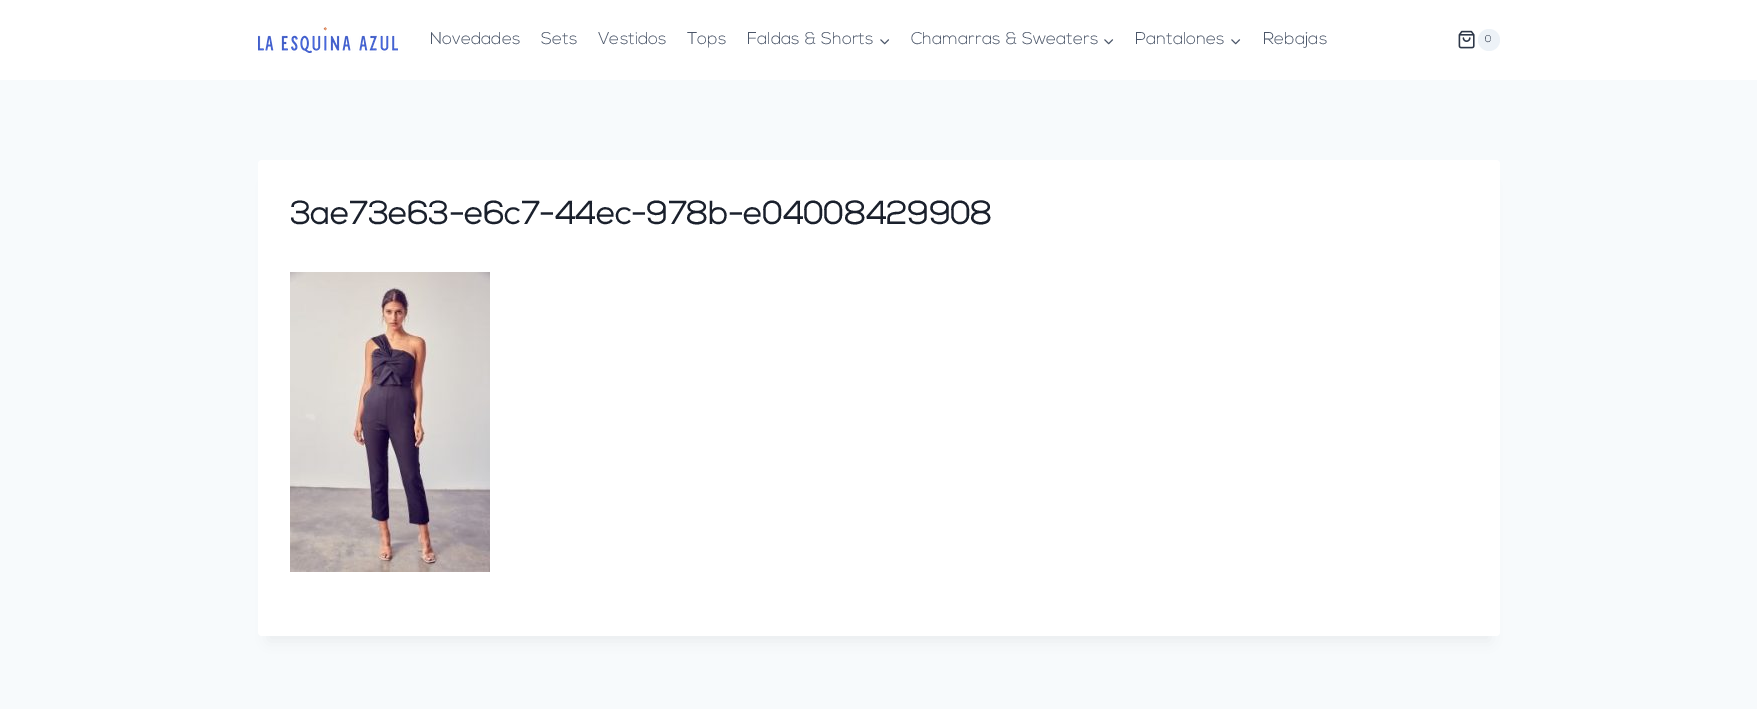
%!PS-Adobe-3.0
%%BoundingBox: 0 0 1757 709
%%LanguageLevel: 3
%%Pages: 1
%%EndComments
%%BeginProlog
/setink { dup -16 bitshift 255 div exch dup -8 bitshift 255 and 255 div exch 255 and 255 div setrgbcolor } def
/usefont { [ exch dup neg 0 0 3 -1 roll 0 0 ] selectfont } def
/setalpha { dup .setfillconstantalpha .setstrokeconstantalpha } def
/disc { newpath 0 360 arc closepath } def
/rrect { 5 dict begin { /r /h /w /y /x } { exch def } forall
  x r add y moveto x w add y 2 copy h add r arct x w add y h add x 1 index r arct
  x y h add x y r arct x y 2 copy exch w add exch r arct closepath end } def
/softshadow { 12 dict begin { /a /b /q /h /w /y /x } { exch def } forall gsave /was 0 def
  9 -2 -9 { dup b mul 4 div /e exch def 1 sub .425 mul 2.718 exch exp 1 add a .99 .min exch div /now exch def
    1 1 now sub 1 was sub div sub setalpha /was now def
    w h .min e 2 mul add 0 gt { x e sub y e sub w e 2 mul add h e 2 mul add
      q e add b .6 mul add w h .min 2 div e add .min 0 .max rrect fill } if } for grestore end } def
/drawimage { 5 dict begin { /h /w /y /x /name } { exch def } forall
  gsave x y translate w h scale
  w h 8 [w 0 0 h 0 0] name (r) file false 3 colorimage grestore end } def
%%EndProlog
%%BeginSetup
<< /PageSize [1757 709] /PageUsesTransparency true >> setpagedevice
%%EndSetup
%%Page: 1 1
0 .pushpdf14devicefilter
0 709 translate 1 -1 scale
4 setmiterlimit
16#F7FAFC setink
0 0 1757 709 rectfill
16#FFFFFF setink
0 0 1757 80 rectfill
(img1.raw) 258 27 140 26 drawimage
/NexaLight-Light 17 usefont
16#4A5568 setink
[
    [(Novedades) 430 44]
    [(Sets) 541 44]
    [(Vestidos) 598 44]
    [(Tops) 687 44]
    [(Faldas & Shorts) 747 44]
] { aload pop moveto show } forall
(img2.raw) 880 39 10 6 drawimage
911 44 moveto (Chamarras & Sweaters) show
(img2.raw) 1104 39 10 6 drawimage
1135 44 moveto (Pantalones) show
(img2.raw) 1231 39 10 6 drawimage
1263 44 moveto (Rebajas) show
(img3.raw) 1458 30 17 19 drawimage
16#EDF2F7 setink
1489 40 11 disc fill
/NexaLight-Light 10 usefont
16#2D3748 setink
1485 42 moveto (0) show
16#000000 setink
268 185 1222 456 0 7.5 0.05 softshadow
16#FFFFFF setink
258 160 1242 476 4 rrect fill
/NexaLight-Bold 32 usefont
16#1A202C setink
290 224 moveto (3ae73e63-e6c7-44ec-978b-e04008429908) show
(img4.raw) 290 272 200 300 drawimage
.poppdf14devicefilter showpage
%%EOF
